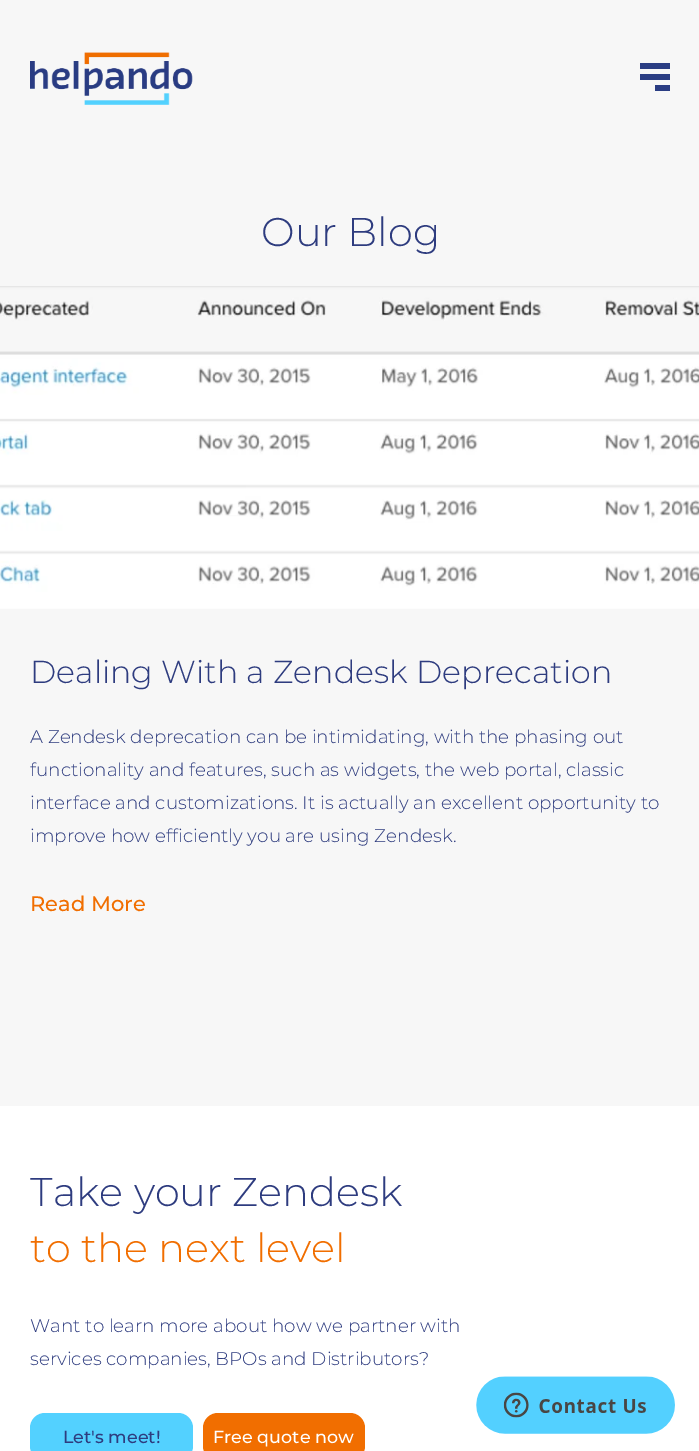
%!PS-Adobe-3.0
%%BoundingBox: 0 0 699 1451
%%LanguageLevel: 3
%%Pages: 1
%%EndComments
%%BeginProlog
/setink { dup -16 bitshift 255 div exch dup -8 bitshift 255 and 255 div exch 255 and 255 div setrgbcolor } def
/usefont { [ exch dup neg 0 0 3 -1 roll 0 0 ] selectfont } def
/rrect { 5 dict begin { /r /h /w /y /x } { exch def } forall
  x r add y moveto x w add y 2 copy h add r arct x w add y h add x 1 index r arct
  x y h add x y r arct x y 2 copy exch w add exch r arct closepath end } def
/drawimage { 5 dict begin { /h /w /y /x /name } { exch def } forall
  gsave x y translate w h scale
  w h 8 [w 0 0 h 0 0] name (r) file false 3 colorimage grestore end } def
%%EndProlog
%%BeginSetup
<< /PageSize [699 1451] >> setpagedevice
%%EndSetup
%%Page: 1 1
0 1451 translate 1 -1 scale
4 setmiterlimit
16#F7F7F7 setink
0 0 699 1451 rectfill
(img1.raw) 30 52 163 53 drawimage
[
    [640 63 30 6 16#2A3D83]
    [640 74 30 6 16#2A3D83]
    [655 85 15 6 16#2A3D83]
] { aload pop setink rectfill } forall
/Montserrat-Light 40 usefont
16#2E3C7F setink
261 246 moveto (Our Blog) show
(img2.raw) 0 286 699 323 drawimage
/Montserrat-Light 31.7 usefont
30 683 moveto (Dealing With a Zendesk Deprecation) show
/Montserrat-Light 18.35 usefont
[
    [(A Zendesk deprecation can be intimidating, with the phasing out) 30 743]
    [(functionality and features, such as widgets, the web portal, classic) 30 776]
    [(interface and customizations. It is actually an excellent opportunity to) 30 809]
    [(improve how efficiently you are using Zendesk.) 30 842]
] { aload pop moveto show } forall
/Montserrat-Medium 21 usefont
16#F16E00 setink
30 911 moveto (Read More) show
16#FFFFFF setink
0 1106 699 345 rectfill
/Montserrat-Light 40 usefont
16#2E3C7F setink
30 1206 moveto (Take your Zendesk) show
16#F16E00 setink
30 1262 moveto (to the next level) show
/Montserrat-Light 18.35 usefont
16#2E3C7F setink
30 1332 moveto (Want to learn more about how we partner with) show
30 1365 moveto (services companies, BPOs and Distributors?) show
16#53D1FF setink
30 1413 163 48 15 rrect fill
/Montserrat-Medium 17.5 usefont
16#2E3C7F setink
63 1443 moveto (Let's meet!) show
16#F16E00 setink
203 1413 162 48 15 rrect fill
16#FFFFFF setink
213 1443 moveto (Free quote now) show
(img3.raw) 476 1376 199 58 drawimage
showpage
%%EOF
